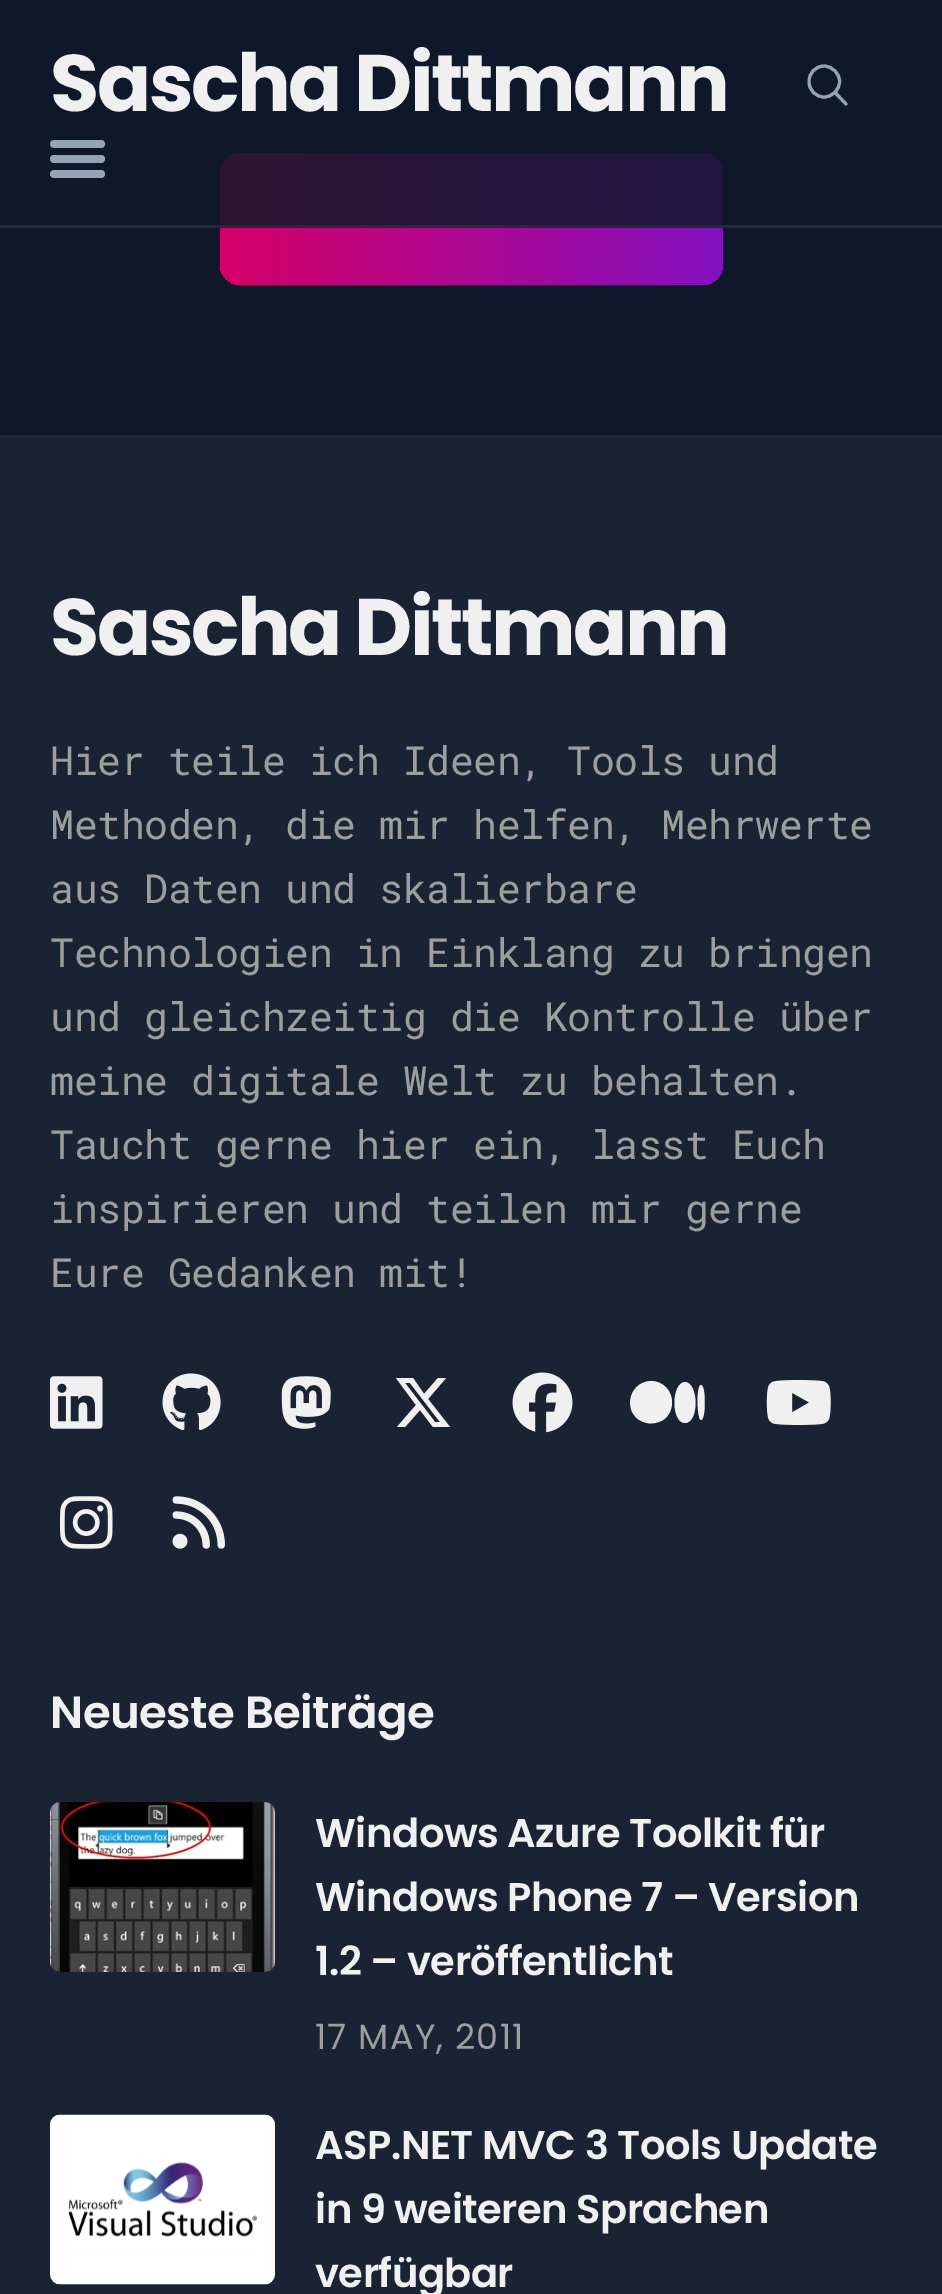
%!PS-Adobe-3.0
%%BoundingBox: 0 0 942 2294
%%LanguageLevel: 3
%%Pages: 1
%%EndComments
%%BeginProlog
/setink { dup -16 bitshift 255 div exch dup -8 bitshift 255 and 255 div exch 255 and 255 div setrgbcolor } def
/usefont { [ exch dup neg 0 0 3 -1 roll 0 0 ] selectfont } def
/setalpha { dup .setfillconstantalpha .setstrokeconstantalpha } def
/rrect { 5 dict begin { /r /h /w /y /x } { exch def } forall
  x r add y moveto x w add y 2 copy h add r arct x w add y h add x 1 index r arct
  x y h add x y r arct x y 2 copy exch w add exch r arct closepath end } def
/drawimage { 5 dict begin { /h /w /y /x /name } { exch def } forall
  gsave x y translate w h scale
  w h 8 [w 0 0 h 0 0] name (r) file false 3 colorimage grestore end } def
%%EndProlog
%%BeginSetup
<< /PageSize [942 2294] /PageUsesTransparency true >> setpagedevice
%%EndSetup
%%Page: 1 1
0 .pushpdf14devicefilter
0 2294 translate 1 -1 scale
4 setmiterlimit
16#0F172A setink
0 0 942 2294 rectfill
gsave 220 153 503 132 20 rrect clip newpath
<< /ShadingType 2 /ColorSpace /DeviceRGB /Coords [220 219 723 219] /Extend [true true] /Function << /FunctionType 2 /Domain [0 1] /C0 [0.839 0 0.404] /C1 [0.514 0.067 0.753] /N 1 >> >> shfill grestore
0.85 setalpha
220 153 503 72 rectfill
1 setalpha
16#232939 setink
0 225 942 3 rectfill
/Poppins-Bold 80 usefont
16#F0F0F0 setink
50 111 moveto -2.5 0 (Sascha Dittmann) ashow
16#94A3B8 setink
3.1 setlinewidth
824 66 moveto 815.5 66 809 73 809 81.5 curveto 809 90 815.5 97 824 97 curveto 832.5 97 839.5 90 839.5 81.5 curveto 839.5 73 832.5 66.5 824 66 curveto closepath stroke
1 setlinecap
835.5 93 moveto 846 104 lineto stroke
50 155 55 8 4 rrect fill
50 140 55 8 4 rrect fill
50 170 55 8 4 rrect fill
16#1A2334 setink
0 438 942 1856 rectfill
16#232939 setink
0 435 942 3 rectfill
16#F0F0F0 setink
50 655 moveto -2.5 0 (Sascha Dittmann) ashow
/RobotoMono-Regular 40 usefont
16#9E9E9E setink
50 775 moveto -0.5 0 (Hier teile ich Ideen, Tools und) ashow
50 839 moveto -0.5 0 (Methoden, die mir helfen, Mehrwerte) ashow
50 903 moveto -0.5 0 (aus Daten und skalierbare) ashow
50 967 moveto -0.5 0 (Technologien in Einklang zu bringen) ashow
50 1031 moveto -0.5 0 (und gleichzeitig die Kontrolle über) ashow
50 1095 moveto -0.5 0 (meine digitale Welt zu behalten.) ashow
50 1159 moveto -0.5 0 (Taucht gerne hier ein, lasst Euch) ashow
50 1223 moveto -0.5 0 (inspirieren und teilen mir gerne) ashow
50 1287 moveto -0.5 0 (Eure Gedanken mit!) ashow
(img1.raw) 50 1376 53 53 drawimage
(img2.raw) 162 1373 59 57 drawimage
(img3.raw) 281 1376 50 53 drawimage
16#F0F0F0 setink
438 1378 moveto 446 1378 lineto 438 1378 lineto 446 1378 lineto 428 1399 lineto 450 1427 lineto 433 1427 lineto 420 1410 lineto 405 1427 lineto 397 1427 lineto 416 1405 lineto 396 1378 lineto 413 1378 lineto 424 1394 lineto closepath 435 1422 moveto 440 1422 lineto 435 1422 lineto 440 1422 lineto 410 1383 lineto 405 1383 lineto closepath fill
(img4.raw) 512 1372 61 61 drawimage
651 1381 moveto 626 1382 622 1418 647 1423 curveto 652 1424 658 1423 663 1420 curveto 669 1416 672 1410 672 1402 curveto 672 1391 663 1381 651 1381 curveto closepath 685 1382 moveto 671 1383 671 1423 685 1423 curveto 699 1423 699 1383 685 1382 curveto closepath 701 1385 moveto 696 1385 697 1420 701 1420 curveto 706 1420 706 1385 701 1385 curveto closepath fill
(img5.raw) 766 1380 65 45 drawimage
(img6.raw) 60 1496 53 53 drawimage
(img7.raw) 172 1496 53 53 drawimage
/Poppins-SemiBold 45 usefont
50 1728 moveto -0.5 0 (Neueste Beiträge) ashow
(img8.raw) 50 1802 225 170 drawimage
/Poppins-SemiBold 40 usefont
315 1847 moveto -0.5 0 (Windows Azure Toolkit für) ashow
315 1911 moveto -0.5 0 (Windows Phone 7 – Version) ashow
315 1975 moveto -0.5 0 (1.2 – veröffentlicht) ashow
/Poppins-Regular 35 usefont
16#9E9E9E setink
315 2049 moveto 1.25 0 (17 MAY, 2011) ashow
(img9.raw) 50 2114 225 171 drawimage
/Poppins-SemiBold 40 usefont
16#F0F0F0 setink
315 2159 moveto -0.5 0 (ASP.NET MVC 3 Tools Update) ashow
315 2223 moveto -0.5 0 (in 9 weiteren Sprachen) ashow
315 2287 moveto -0.5 0 (verfügbar) ashow
.poppdf14devicefilter showpage
%%EOF
